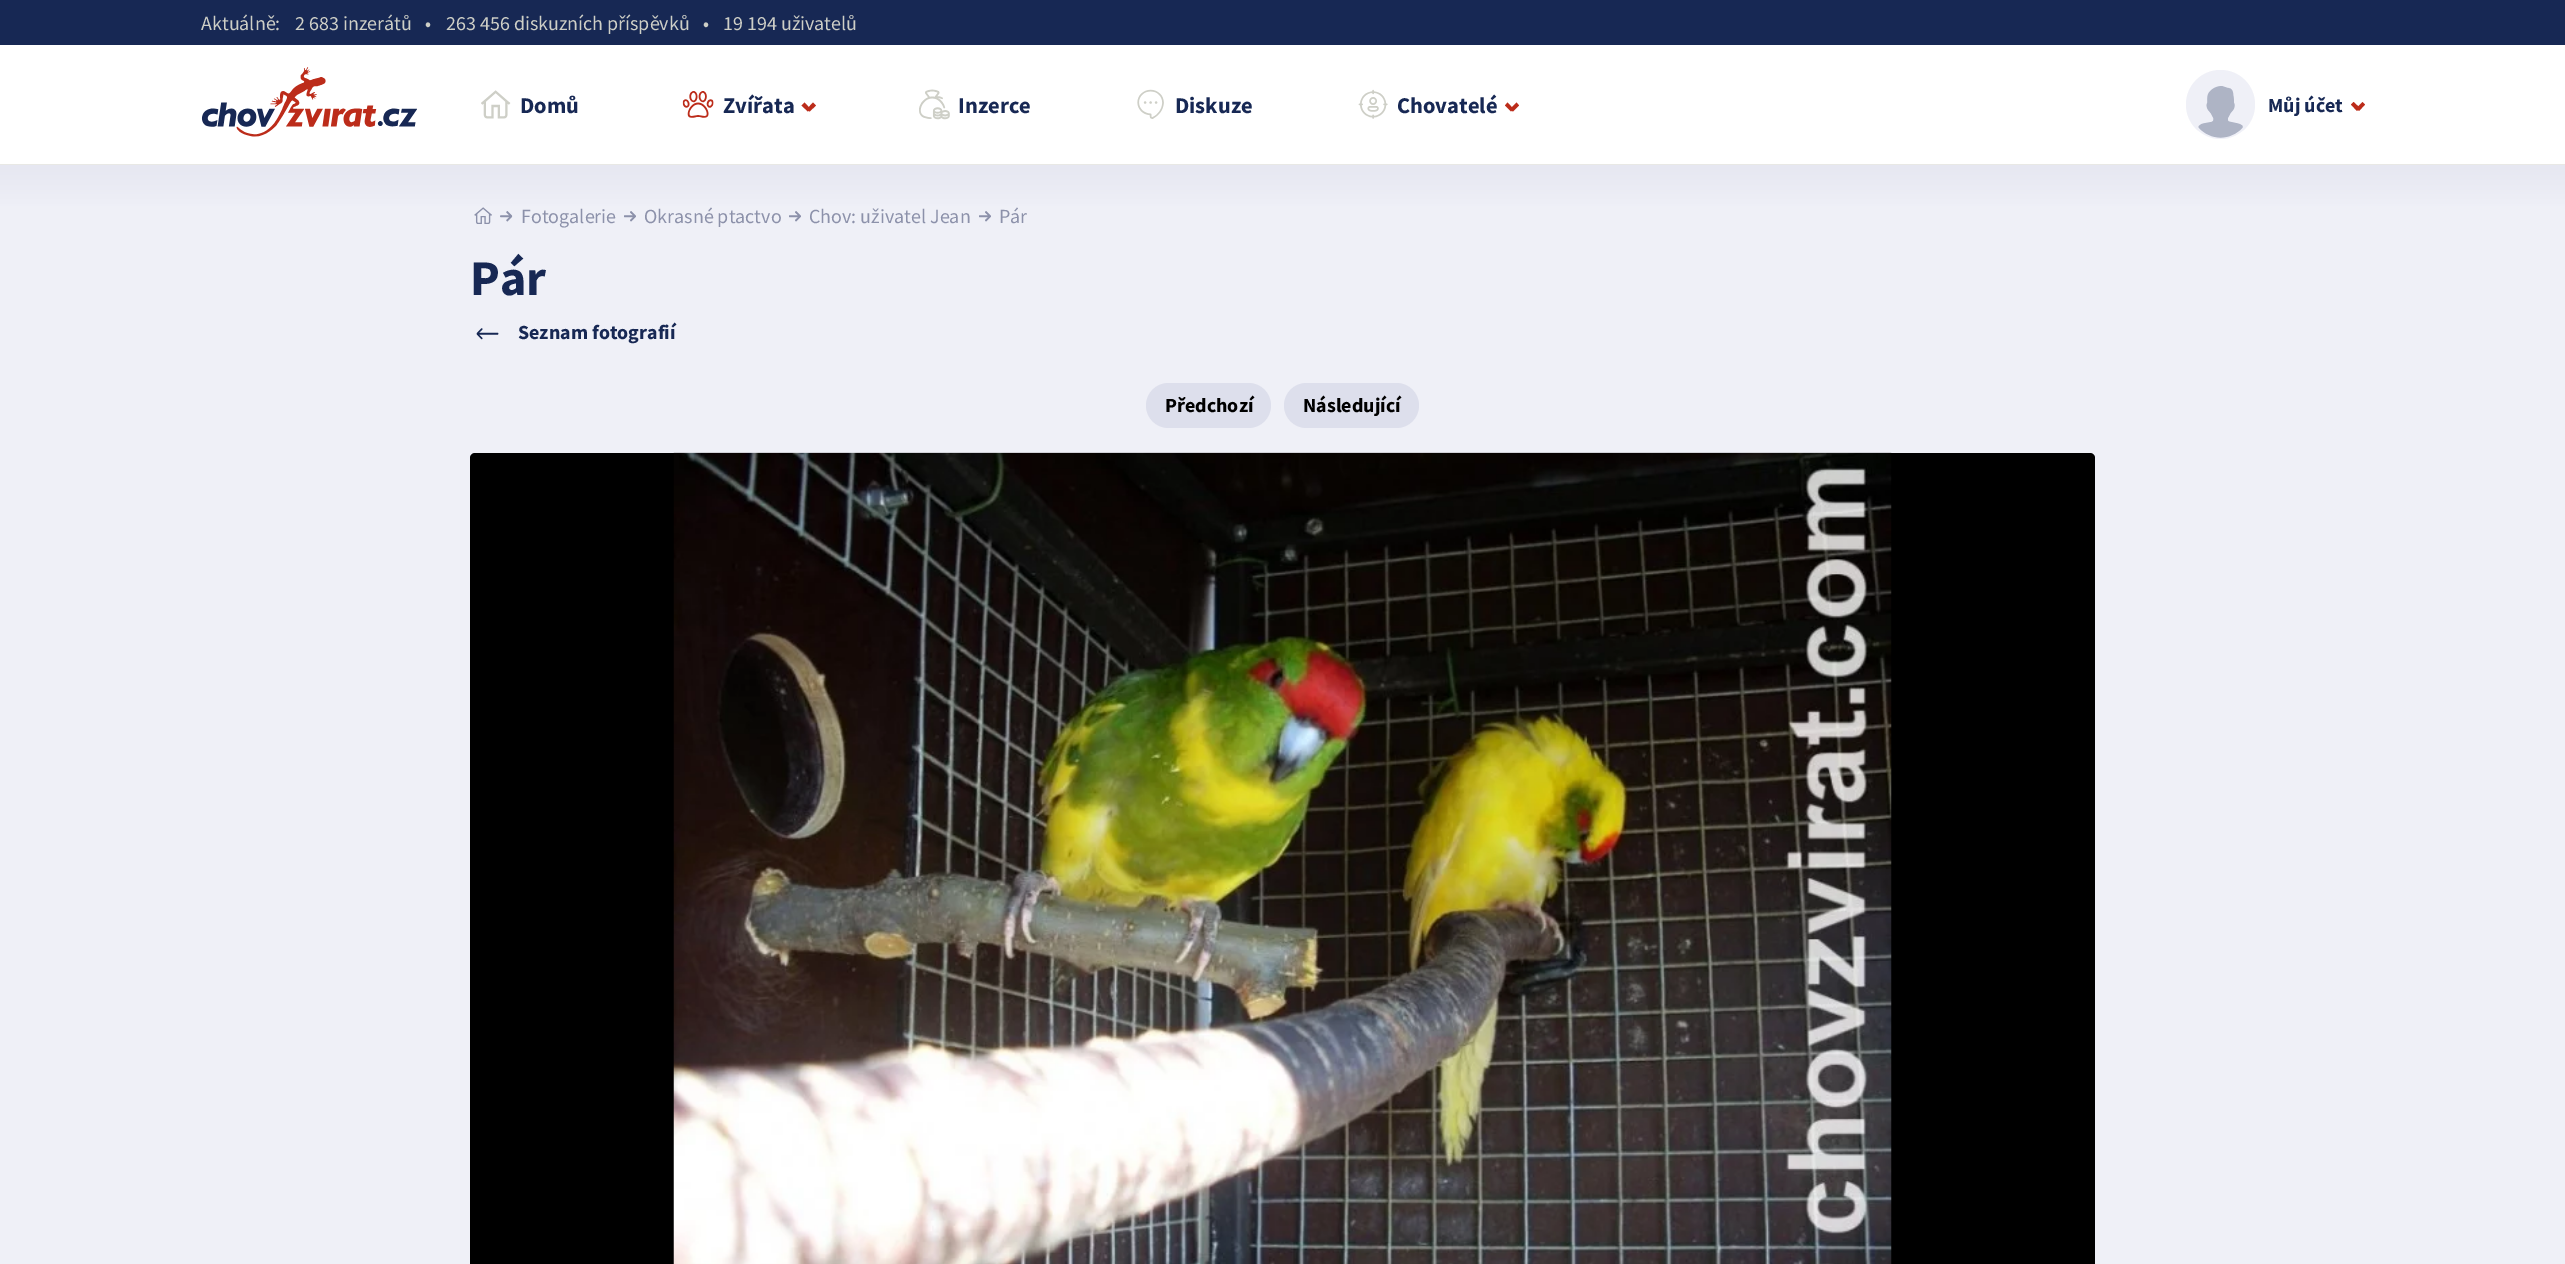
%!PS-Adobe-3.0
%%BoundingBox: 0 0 2565 1264
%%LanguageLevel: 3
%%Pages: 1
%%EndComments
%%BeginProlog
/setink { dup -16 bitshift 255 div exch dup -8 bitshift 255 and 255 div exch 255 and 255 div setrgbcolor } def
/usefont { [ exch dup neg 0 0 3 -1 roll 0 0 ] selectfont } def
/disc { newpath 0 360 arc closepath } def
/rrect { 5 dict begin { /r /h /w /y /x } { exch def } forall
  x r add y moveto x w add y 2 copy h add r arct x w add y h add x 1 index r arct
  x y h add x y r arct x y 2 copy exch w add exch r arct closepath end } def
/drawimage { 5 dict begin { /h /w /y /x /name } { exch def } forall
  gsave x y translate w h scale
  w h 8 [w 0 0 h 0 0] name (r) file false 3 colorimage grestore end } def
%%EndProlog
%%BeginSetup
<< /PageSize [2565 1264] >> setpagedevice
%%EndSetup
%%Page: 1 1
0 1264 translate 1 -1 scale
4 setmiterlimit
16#172854 setink
0 0 2565 1264 rectfill
/SourceSansPro-Regular 20 usefont
16#CECFC7 setink
[
    [(Aktuálně:) 201 30]
    [(2 683 inzerátů) 295 30]
    [(•) 425 30]
    [(263 456 diskuzních příspěvků) 446 30]
    [(•) 703 30]
    [(19 194 uživatelů) 723 30]
] { aload pop moveto show } forall
16#FFFFFF setink
0 45 2565 119 rectfill
16#E8E8E5 setink
0 164 2565 1 rectfill
(img1.raw) 201 67 216 70 drawimage
(img2.raw) 481 90 30 29 drawimage
/SourceSansPro-Bold 22.5 usefont
16#172854 setink
520 113 moveto (Domů) show
(img3.raw) 682 91 32 27 drawimage
723 113 moveto (Zvířata) show
16#BC2C1A setink
813 102.5 moveto 816 105.5 lineto 809.5 111.5 lineto 807 109 lineto closepath fill
804.5 102.5 moveto 810.5 109 lineto 808 111.5 lineto 801.5 105.5 lineto closepath fill
(img4.raw) 919 89 31 31 drawimage
16#172854 setink
958 113 moveto (Inzerce) show
(img5.raw) 1137 89 27 30 drawimage
1175 113 moveto (Diskuze) show
(img6.raw) 1358 89 30 30 drawimage
1397 113 moveto (Chovatelé) show
16#BC2C1A setink
1516.5 102.5 moveto 1519 105.5 lineto 1513 111.5 lineto 1510 109 lineto closepath fill
1507.5 102.5 moveto 1513.5 109 lineto 1511 111.5 lineto 1505 105.5 lineto closepath fill
16#EFF0F7 setink
2220.5 104.5 34.5 disc fill
(img7.raw) 2198 86 45 52 drawimage
/SourceSansPro-Bold 20 usefont
16#172854 setink
2268 112 moveto (Můj účet) show
16#BC2C1A setink
2362.5 102 moveto 2365 104.5 lineto 2359 111 lineto 2356.5 108 lineto closepath fill
2353.5 102 moveto 2360 108 lineto 2357 111 lineto 2351 104.5 lineto closepath fill
gsave 0 165 moveto 2565 165 lineto 2565 1264 lineto 0 1264 lineto closepath clip newpath
<< /ShadingType 2 /ColorSpace /DeviceRGB /Coords [1283 165 1283 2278] /Extend [true true] /Function << /FunctionType 3 /Domain [0 1] /Functions [<< /FunctionType 2 /Domain [0 1] /C0 [0.902 0.906 0.945] /C1 [0.937 0.941 0.969] /N 1 >> << /FunctionType 2 /Domain [0 1] /C0 [0.937 0.941 0.969] /C1 [0.937 0.941 0.969] /N 1 >>] /Bounds [0.02] /Encode [0 1 0 1] >> >> shfill grestore
(img8.raw) 474 207 18 17 drawimage
(img9.raw) 500 211 13 11 drawimage
/SourceSansPro-Regular 20 usefont
16#8C91AA setink
521 223 moveto (Fotogalerie) show
(img10.raw) 624 211 12 11 drawimage
644 223 moveto (Okrasné ptactvo) show
(img10.raw) 789 211 12 11 drawimage
809 223 moveto (Chov: uživatel Jean) show
(img10.raw) 979 211 12 11 drawimage
999 223 moveto (Pár) show
/SourceSansPro-Bold 50 usefont
16#172854 setink
470 295 moveto (Pár) show
(img11.raw) 476 328 23 12 drawimage
/SourceSansPro-Bold 20 usefont
518 339 moveto (Seznam fotografií) show
16#DDDFEC setink
1146 383 125 45 22.5 rrect fill
16#000000 setink
1165 412 moveto (Předchozí) show
16#DDDFEC setink
1284 383 135 45 22.5 rrect fill
16#000000 setink
1303 412 moveto (Následující) show
470 453 1625 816 5 rrect fill
(img12.raw) 673 452 1219 812 drawimage
showpage
%%EOF
